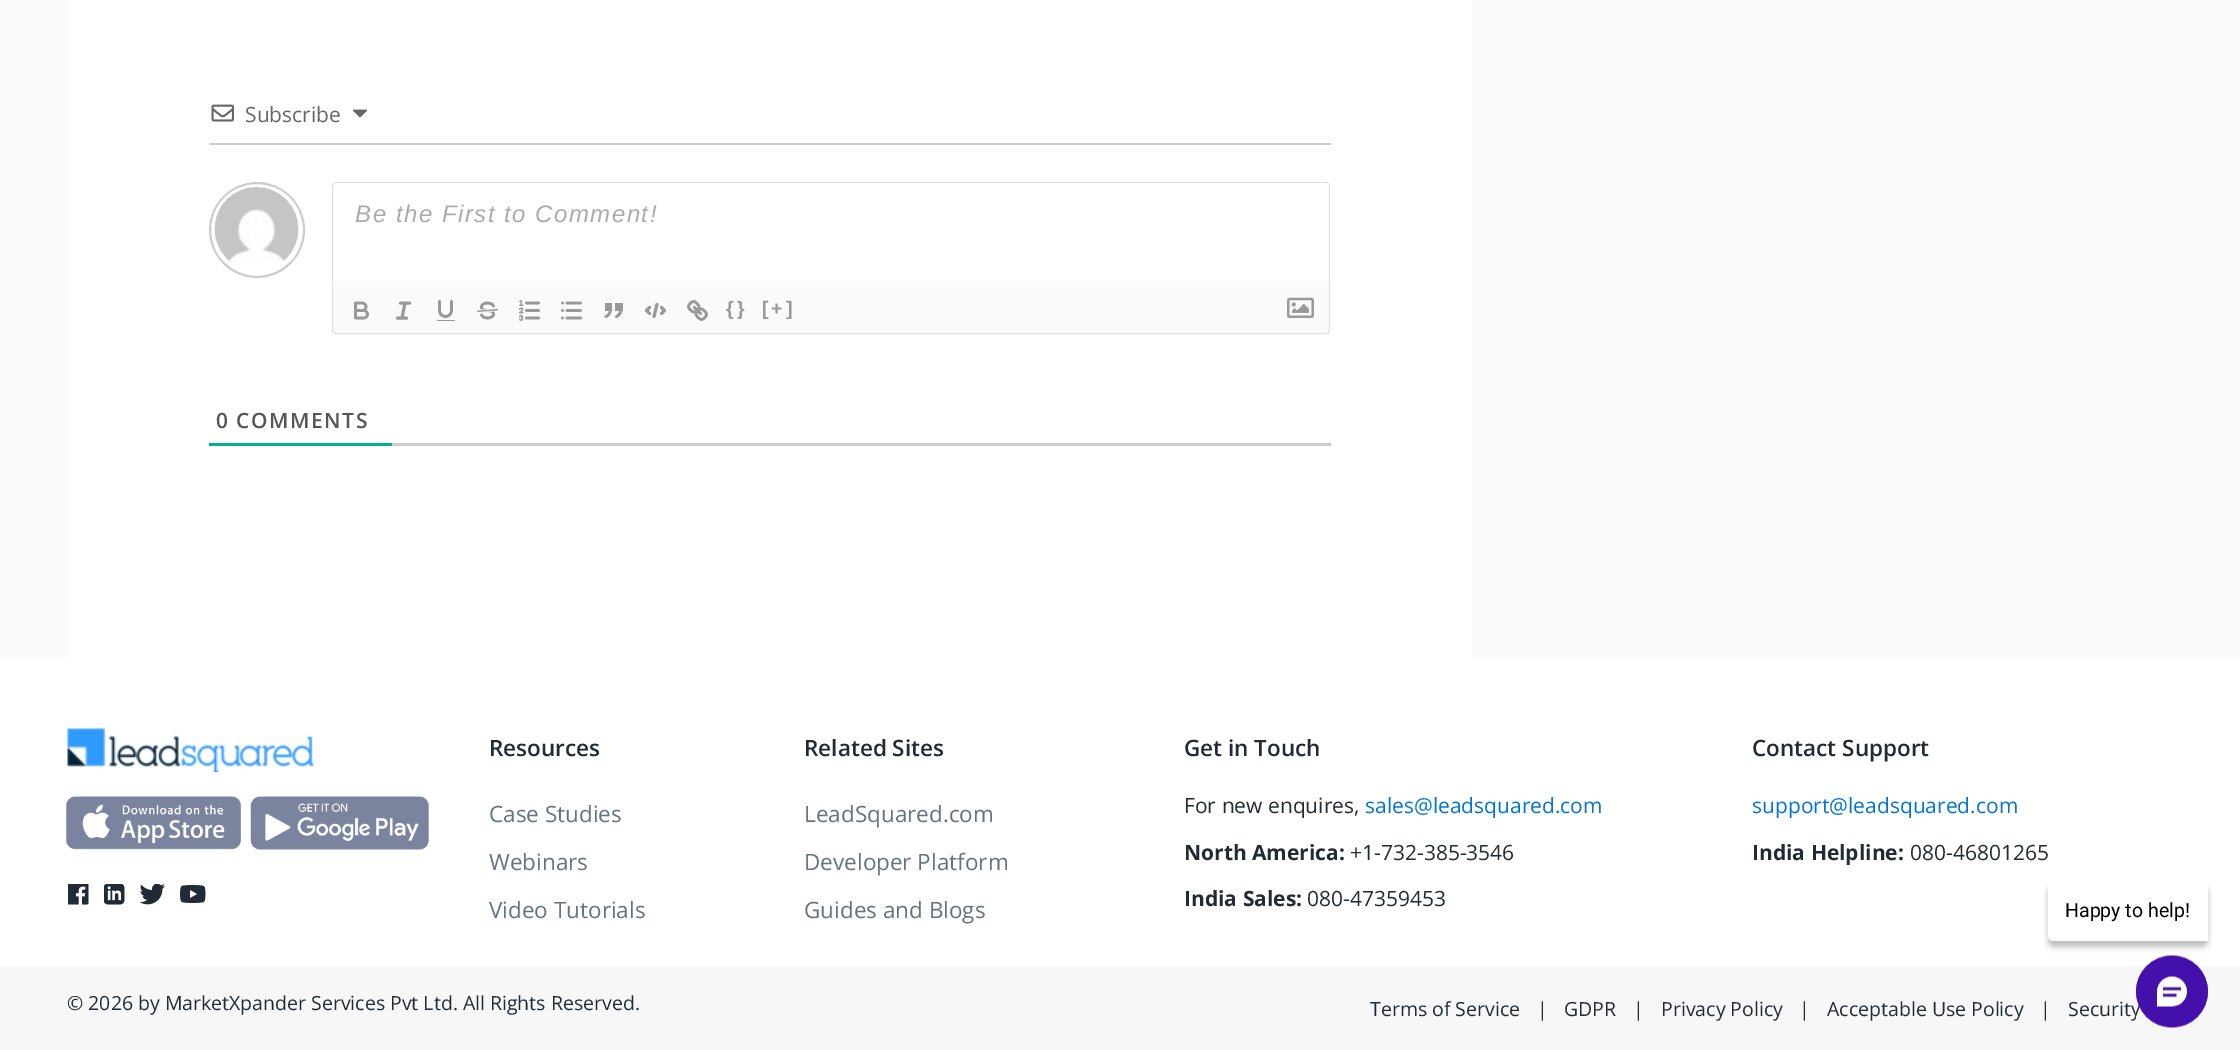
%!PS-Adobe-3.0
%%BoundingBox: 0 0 2240 1050
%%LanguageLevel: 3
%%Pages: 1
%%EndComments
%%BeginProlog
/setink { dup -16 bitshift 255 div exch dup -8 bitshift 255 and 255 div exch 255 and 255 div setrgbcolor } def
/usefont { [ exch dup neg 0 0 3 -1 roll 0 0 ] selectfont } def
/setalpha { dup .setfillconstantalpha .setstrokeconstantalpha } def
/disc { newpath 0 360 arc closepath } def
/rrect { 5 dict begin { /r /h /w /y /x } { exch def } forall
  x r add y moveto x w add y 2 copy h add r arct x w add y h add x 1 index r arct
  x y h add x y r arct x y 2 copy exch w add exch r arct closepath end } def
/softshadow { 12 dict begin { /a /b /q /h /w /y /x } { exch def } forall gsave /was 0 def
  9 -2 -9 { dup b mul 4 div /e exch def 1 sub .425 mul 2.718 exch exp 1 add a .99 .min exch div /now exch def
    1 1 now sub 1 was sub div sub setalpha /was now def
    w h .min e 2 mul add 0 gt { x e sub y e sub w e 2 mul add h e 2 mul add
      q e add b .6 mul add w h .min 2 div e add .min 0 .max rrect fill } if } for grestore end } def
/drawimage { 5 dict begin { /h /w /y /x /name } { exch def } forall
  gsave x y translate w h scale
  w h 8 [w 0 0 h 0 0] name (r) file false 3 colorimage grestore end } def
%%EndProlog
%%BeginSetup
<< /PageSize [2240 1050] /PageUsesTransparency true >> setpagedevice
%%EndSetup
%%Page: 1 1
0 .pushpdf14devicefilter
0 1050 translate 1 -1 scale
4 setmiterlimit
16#FFFFFF setink
0 0 2240 1050 rectfill
[
    [0 0 2240 657 16#FAFAFA]
    [68 0 1404 657 16#FFFFFF]
    [209 143 1122 2 16#CCCCCC]
] { aload pop setink rectfill } forall
(img1.raw) 211 104 23 18 drawimage
/OpenSans-Regular 21 usefont
16#666666 setink
245 122 moveto (Subscribe) show
(img2.raw) 353 109 14 9 drawimage
16#CCCCCC setink
2 setlinewidth
257 230 47 disc stroke
(img3.raw) 214 187 85 75 drawimage
16#FAFAFA setink
332 281 moveto 1331 281 lineto 1331 330 lineto 1331 333 1329 335 1326 335 curveto 337 335 lineto 334 335 332 333 332 330 curveto closepath fill
16#DDDDDD setink
332 280 moveto 1330 280 lineto 1330 330 lineto 1330 332 1328 334 1326 334 curveto 336 334 lineto 334 334 332 332 332 330 curveto closepath 333 280 moveto 1329 280 lineto 1329 330 lineto 1329 332 1328 333 1326 333 curveto 336 333 lineto 334 333 333 332 333 330 curveto closepath eofill
16#FFFFFF setink
337 182 moveto 1326 182 lineto 1329 182 1331 184 1331 187 curveto 1331 281 lineto 332 281 lineto 332 187 lineto 332 184 334 182 337 182 curveto closepath fill
16#DDDDDD setink
336 182 moveto 1326 182 lineto 1328 182 1330 184 1330 186 curveto 1330 280 lineto 332 280 lineto 332 186 lineto 332 184 334 182 336 182 curveto closepath 336 183 moveto 1326 183 lineto 1328 183 1329 184 1329 186 curveto 1329 280 lineto 333 280 lineto 333 186 lineto 333 184 334 183 336 183 curveto closepath eofill
/LiberationSans-Italic 24 usefont
16#AAAAAA setink
355 222 moveto 1.5 0 (Be the First to Comment!) ashow
(img4.raw) 354 301 15 19 drawimage
16#999999 setink
3 setlinewidth
1 setlinecap
1 setlinejoin
400.5 303 moveto 409.5 303 lineto 397.5 318 moveto 406.5 318 lineto 402 318 moveto 405 303 lineto stroke
(img5.raw) 437 300 18 21 drawimage
(img6.raw) 477 301 21 19 drawimage
(img7.raw) 519 300 21 21 drawimage
(img8.raw) 561 301 21 19 drawimage
(img9.raw) 604 303 19 15 drawimage
649.5 307.5 moveto 646.5 310.5 lineto 649.5 313.5 lineto 661.5 307.5 moveto 664.5 310.5 lineto 661.5 313.5 lineto 657 304.5 moveto 654 316.5 lineto stroke
(img10.raw) 687 300 21 21 drawimage
/LiberationSans-Bold 19.5 usefont
726 315 moveto 3 0 ({}) ashow
762 315 moveto 3 0 ([+]) ashow
(img11.raw) 1287 297 27 21 drawimage
16#CCCCCC setink
392 443 939 3 rectfill
16#00B38F setink
209 443 183 3 rectfill
/OpenSans-SemiBold 21 usefont
16#555555 setink
216 428 moveto 1.5 0 (0 COMMENTS) ashow
(img12.raw) 67 728 247 44 drawimage
(img13.raw) 66 796 175 54 drawimage
(img14.raw) 250 796 179 54 drawimage
(img15.raw) 68 884 21 21 drawimage
(img16.raw) 104 884 21 21 drawimage
(img17.raw) 140 884 25 21 drawimage
(img18.raw) 180 885 26 18 drawimage
/OpenSans-SemiBold 22.5 usefont
16#212B35 setink
489 756 moveto (Resources) show
/OpenSans-Regular 22.5 usefont
16#637381 setink
[
    [(Case Studies) 489 822]
    [(Webinars) 489 870]
    [(Video Tutorials) 489 918]
] { aload pop moveto show } forall
/OpenSans-SemiBold 22.5 usefont
16#212B35 setink
804 756 moveto (Related Sites) show
/OpenSans-Regular 22.5 usefont
16#637381 setink
[
    [(LeadSquared.com) 804 822]
    [(Developer Platform) 804 870]
    [(Guides and Blogs) 804 918]
] { aload pop moveto show } forall
/OpenSans-SemiBold 22.5 usefont
16#212B35 setink
1184 756 moveto (Get in Touch) show
/OpenSans-Regular 21 usefont
1184 813 moveto (For new enquires,) show
16#0074D6 setink
1365 813 moveto (sales@leadsquared.com) show
/OpenSans-Bold 21 usefont
16#212B35 setink
1184 860 moveto (North America:) show
/OpenSans-Regular 21 usefont
1350 860 moveto (+1-732-385-3546) show
/OpenSans-Bold 21 usefont
1184 906 moveto (India Sales:) show
/OpenSans-Regular 21 usefont
1307 906 moveto (080-47359453) show
/OpenSans-SemiBold 22.5 usefont
1752 756 moveto (Contact Support) show
/OpenSans-Regular 21 usefont
16#0074D6 setink
1752 813 moveto (support@leadsquared.com) show
/OpenSans-Bold 21 usefont
16#212B35 setink
1752 860 moveto (India Helpline:) show
/OpenSans-Regular 21 usefont
1910 860 moveto (080-46801265) show
16#F7F7F7 setink
0 966 2240 84 rectfill
/OpenSans-Regular 19.5 usefont
16#212B35 setink
[
    [(© 2026 by MarketXpander Services Pvt Ltd. All Rights Reserved.) 67 1010]
    [(Terms of Service) 1370 1016]
    [(|) 1537 1016]
    [(GDPR) 1564 1016]
    [(|) 1633 1016]
    [(Privacy Policy) 1661 1016]
    [(|) 1799 1016]
    [(Acceptable Use Policy) 1827 1016]
    [(|) 2040 1016]
    [(Security) 2068 1016]
] { aload pop moveto show } forall
16#000000 setink
2048 887 160 60 6 3 0.25 softshadow
16#FFFFFF setink
2054 881 moveto 2202 881 lineto 2205.5 881 2208 883.5 2208 887 curveto 2208 941 lineto 2054 941 lineto 2050.5 941 2048 938.5 2048 935 curveto 2048 887 lineto 2048 883.5 2050.5 881 2054 881 curveto closepath fill
/Roboto-Regular 19.5 usefont
16#000000 setink
2065 917 moveto (Happy to help!) show
(img19.raw) 2136 955 72 73 drawimage
.poppdf14devicefilter showpage
%%EOF
